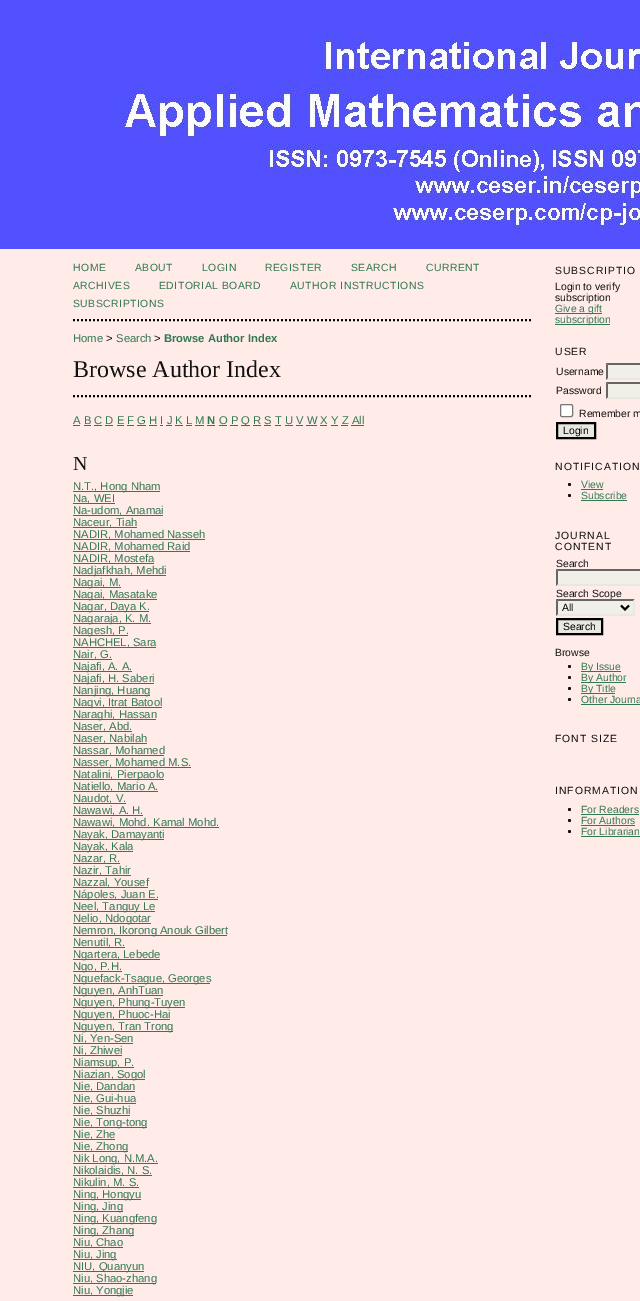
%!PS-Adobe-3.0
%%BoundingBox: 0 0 640 1301
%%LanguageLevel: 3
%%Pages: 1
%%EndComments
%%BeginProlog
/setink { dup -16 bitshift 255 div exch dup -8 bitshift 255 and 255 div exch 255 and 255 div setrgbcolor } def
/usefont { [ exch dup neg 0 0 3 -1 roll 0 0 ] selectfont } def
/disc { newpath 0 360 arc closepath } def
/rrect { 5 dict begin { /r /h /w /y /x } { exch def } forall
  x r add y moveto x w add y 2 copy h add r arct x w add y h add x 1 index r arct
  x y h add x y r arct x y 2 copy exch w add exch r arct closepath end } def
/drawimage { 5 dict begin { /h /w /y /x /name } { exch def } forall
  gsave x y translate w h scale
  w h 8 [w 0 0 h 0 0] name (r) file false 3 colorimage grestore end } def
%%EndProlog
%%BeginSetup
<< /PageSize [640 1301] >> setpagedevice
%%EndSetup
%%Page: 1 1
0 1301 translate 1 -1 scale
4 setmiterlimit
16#FFEBE7 setink
0 0 640 1301 rectfill
16#5151FF setink
0 0 640 249 rectfill
(img1.raw) 120 31 520 209 drawimage
16#000000 setink
2 setlinewidth
[2 2] 0 setdash
73 320 moveto 533 320 lineto stroke
/LiberationSans-Regular 10.4 usefont
16#337755 setink
73 271 moveto 0.5 0 (HOME) ashow
135 271 moveto 0.5 0 (ABOUT) ashow
202 271 moveto 0.5 0 (LOGIN) ashow
265 271 moveto 0.5 0 (REGISTER) ashow
351 271 moveto 0.5 0 (SEARCH) ashow
426 271 moveto 0.5 0 (CURRENT) ashow
73 289 moveto 0.5 0 (ARCHIVES) ashow
159 289 moveto 0.5 0 (EDITORIAL BOARD) ashow
290 289 moveto 0.5 0 (AUTHOR INSTRUCTIONS) ashow
73 307 moveto 0.5 0 (SUBSCRIPTIONS) ashow
/LiberationSans-Regular 11.25 usefont
73 342 moveto (Home) show
16#111111 setink
106 342 moveto (>) show
16#337755 setink
116 342 moveto (Search) show
16#111111 setink
154 342 moveto (>) show
/LiberationSans-Bold 11.25 usefont
16#337755 setink
164 342 moveto (Browse Author Index) show
/LiberationSerif-Regular 24 usefont
16#111111 setink
73 377 moveto (Browse Author Index) show
16#000000 setink
73 396 moveto 533 396 lineto stroke
/LiberationSans-Regular 11.25 usefont
16#337755 setink
73 424 moveto (A B C D E F G H I J K L M) show
73 425 7 1 rectfill
/LiberationSans-Bold 11.25 usefont
207 424 moveto (N) show
207 425 8 1 rectfill
/LiberationSans-Regular 11.25 usefont
219 424 moveto (O P) show
219 425 8 1 rectfill
241 425 9 1 rectfill
241 424 moveto (Q R S T U V W X Y Z All) show
[
    [84 425 7 1 16#337755]
    [94 425 8 1 16#337755]
    [105 425 8 1 16#337755]
    [117 425 7 1 16#337755]
    [127 425 7 1 16#337755]
    [137 425 9 1 16#337755]
    [149 425 8 1 16#337755]
    [160 425 3 1 16#337755]
    [166 425 6 1 16#337755]
    [175 425 8 1 16#337755]
    [186 425 6 1 16#337755]
    [195 425 9 1 16#337755]
    [230 425 8 1 16#337755]
    [253 425 8 1 16#337755]
    [264 425 7 1 16#337755]
    [275 425 6 1 16#337755]
    [285 425 8 1 16#337755]
    [296 425 7 1 16#337755]
    [306 425 11 1 16#337755]
    [320 425 7 1 16#337755]
    [331 425 7 1 16#337755]
    [341 425 7 1 16#337755]
    [351 425 13 1 16#337755]
] { aload pop setink rectfill } forall
/LiberationSerif-Regular 20 usefont
16#111111 setink
73 470 moveto (N) show
16#337755 setink
73 491 87 1 rectfill
/LiberationSans-Regular 11.25 usefont
73 490 moveto (N.T., Hong Nham) show
73 503 42 1 rectfill
73 502 moveto (Na, WEI) show
73 515 90 1 rectfill
73 514 moveto (Na-udom, Anamai) show
73 527 64 1 rectfill
73 526 moveto (Naceur, Tiah) show
73 539 132 1 rectfill
73 538 moveto (NADIR, Mohamed Nasseh) show
73 551 117 1 rectfill
73 550 moveto (NADIR, Mohamed Raid) show
73 563 81 1 rectfill
73 562 moveto (NADIR, Mostefa) show
73 575 93 1 rectfill
73 574 moveto (Nadjafkhah, Mehdi) show
73 587 48 1 rectfill
73 586 moveto (Nagai, M.) show
73 599 84 1 rectfill
73 598 moveto (Nagai, Masatake) show
73 611 76 1 rectfill
73 610 moveto (Nagar, Daya K.) show
73 623 78 1 rectfill
73 622 moveto (Nagaraja, K. M.) show
73 635 55 1 rectfill
73 634 moveto (Nagesh, P.) show
73 647 83 1 rectfill
73 646 moveto (NAHCHEL, Sara) show
73 659 39 1 rectfill
73 658 moveto (Nair, G.) show
73 671 59 1 rectfill
73 670 moveto (Najafi, A. A.) show
73 683 81 1 rectfill
73 682 moveto (Najafi, H. Saberi) show
73 695 77 1 rectfill
73 694 moveto (Nanjing, Huang) show
73 707 89 1 rectfill
73 706 moveto (Naqvi, Itrat Batool) show
73 719 83 1 rectfill
73 718 moveto (Naraghi, Hassan) show
73 731 59 1 rectfill
73 730 moveto (Naser, Abd.) show
73 743 74 1 rectfill
73 742 moveto (Naser, Nabilah) show
73 755 91 1 rectfill
73 754 moveto (Nassar, Mohamed) show
73 767 118 1 rectfill
73 766 moveto (Nasser, Mohamed M.S.) show
73 779 91 1 rectfill
73 778 moveto (Natalini, Pierpaolo) show
73 791 85 1 rectfill
73 790 moveto (Natiello, Mario A.) show
73 803 53 1 rectfill
73 802 moveto (Naudot, V.) show
73 815 70 1 rectfill
73 814 moveto (Nawawi, A. H.) show
73 827 146 1 rectfill
73 826 moveto (Nawawi, Mohd. Kamal Mohd.) show
73 839 91 1 rectfill
73 838 moveto (Nayak, Damayanti) show
73 851 60 1 rectfill
73 850 moveto (Nayak, Kala) show
73 863 47 1 rectfill
73 862 moveto (Nazar, R.) show
73 875 58 1 rectfill
73 874 moveto (Nazir, Tahir) show
73 887 75 1 rectfill
73 886 moveto (Nazzal, Yousef) show
73 899 85 1 rectfill
73 898 moveto (Nápoles, Juan E.) show
73 911 82 1 rectfill
73 910 moveto (Neel, Tanguy Le) show
73 923 78 1 rectfill
73 922 moveto (Nelio, Ndogotar) show
73 935 154 1 rectfill
73 934 moveto (Nemron, Ikorong Anouk Gilbert) show
73 947 52 1 rectfill
73 946 moveto (Nenutil, R.) show
73 959 87 1 rectfill
73 958 moveto (Ngartera, Lebede) show
73 971 49 1 rectfill
73 970 moveto (Ngo, P.H.) show
73 983 137 1 rectfill
73 982 moveto (Nguefack-Tsague, Georges) show
73 995 90 1 rectfill
73 994 moveto (Nguyen, AnhTuan) show
73 1007 112 1 rectfill
73 1006 moveto (Nguyen, Phung-Tuyen) show
73 1019 97 1 rectfill
73 1018 moveto (Nguyen, Phuoc-Hai) show
73 1031 100 1 rectfill
73 1030 moveto (Nguyen, Tran Trong) show
73 1043 60 1 rectfill
73 1042 moveto (Ni, Yen-Sen) show
73 1055 49 1 rectfill
73 1054 moveto (Ni, Zhiwei) show
73 1067 61 1 rectfill
73 1066 moveto (Niamsup, P.) show
73 1079 72 1 rectfill
73 1078 moveto (Niazian, Sogol) show
73 1091 62 1 rectfill
73 1090 moveto (Nie, Dandan) show
73 1103 63 1 rectfill
73 1102 moveto (Nie, Gui-hua) show
73 1115 57 1 rectfill
73 1114 moveto (Nie, Shuzhi) show
73 1127 74 1 rectfill
73 1126 moveto (Nie, Tong-tong) show
73 1139 42 1 rectfill
73 1138 moveto (Nie, Zhe) show
73 1151 55 1 rectfill
73 1150 moveto (Nie, Zhong) show
73 1163 85 1 rectfill
73 1162 moveto (Nik Long, N.M.A.) show
73 1175 79 1 rectfill
73 1174 moveto (Nikolaidis, N. S.) show
73 1187 66 1 rectfill
73 1186 moveto (Nikulin, M. S.) show
73 1199 68 1 rectfill
73 1198 moveto (Ning, Hongyu) show
73 1211 50 1 rectfill
73 1210 moveto (Ning, Jing) show
73 1223 83 1 rectfill
73 1222 moveto (Ning, Kuangfeng) show
73 1235 61 1 rectfill
73 1234 moveto (Ning, Zhang) show
73 1247 50 1 rectfill
73 1246 moveto (Niu, Chao) show
73 1259 44 1 rectfill
73 1258 moveto (Niu, Jing) show
73 1271 71 1 rectfill
73 1270 moveto (NIU, Quanyun) show
73 1283 83 1 rectfill
73 1282 moveto (Niu, Shao-zhang) show
73 1295 60 1 rectfill
73 1294 moveto (Niu, Yongjie) show
/LiberationSans-Regular 10.4 usefont
16#111111 setink
555 274 moveto 1 0 (SUBSCRIPTIO) ashow
555 290 moveto (Login to verify) show
555 301 moveto (subscription) show
16#337755 setink
555 313 47 1 rectfill
555 312 moveto (Give a gift) show
555 324 55 1 rectfill
555 323 moveto (subscription) show
16#111111 setink
555 355 moveto 1 0 (USER) ashow
556 375 moveto (Username) show
16#F0F0E8 setink
606 363 34 17 rectfill
16#666666 setink
606 363 moveto 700 363 lineto 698 365 lineto 608 365 lineto closepath fill
16#E8E8E1 setink
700 380 moveto 606 380 lineto 608 378 lineto 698 378 lineto closepath fill
16#666666 setink
606 380 moveto 606 363 lineto 608 365 lineto 608 378 lineto closepath fill
16#111111 setink
556 394 moveto (Password) show
16#F0F0E8 setink
606 382 34 17 rectfill
16#666666 setink
606 382 moveto 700 382 lineto 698 384 lineto 608 384 lineto closepath fill
16#E8E8E1 setink
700 399 moveto 606 399 lineto 608 397 lineto 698 397 lineto closepath fill
16#666666 setink
606 399 moveto 606 382 lineto 608 384 lineto 608 397 lineto closepath fill
16#FFFFFF setink
560.5 404.5 12 12 1.5 rrect gsave fill grestore
16#767676 setink
1 setlinewidth
[] 0 setdash
stroke
16#111111 setink
579 417 moveto (Remember m) show
16#E8E8E1 setink
557 423 moveto 595 423 lineto 595 438 lineto 557 438 lineto closepath gsave fill grestore
16#000000 setink
2 setlinewidth
stroke
563 434 moveto (Login) show
16#111111 setink
555 470 moveto 1 0 (NOTIFICATION) ashow
569.5 484.5 1.5 disc fill
16#337755 setink
581 488 moveto (View) show
581 489 22 1 rectfill
16#111111 setink
569.5 495.5 1.5 disc fill
16#337755 setink
581 499 moveto (Subscribe) show
581 500 46 1 rectfill
16#111111 setink
555 539 moveto 1 0 (JOURNAL) ashow
555 550 moveto 1 0 (CONTENT) ashow
556 567 moveto (Search) show
16#F0F0E8 setink
556 569 84 17 rectfill
16#666666 setink
556 569 moveto 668 569 lineto 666 571 lineto 558 571 lineto closepath fill
16#E8E8E1 setink
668 586 moveto 556 586 lineto 558 584 lineto 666 584 lineto closepath fill
16#666666 setink
556 586 moveto 556 569 lineto 558 571 lineto 558 584 lineto closepath fill
16#111111 setink
556 597 moveto (Search Scope) show
16#F0F0E8 setink
556 599 79 17 rectfill
16#666666 setink
556 599 moveto 635 599 lineto 633 601 lineto 558 601 lineto closepath fill
16#E8E8E1 setink
635 599 moveto 635 616 lineto 633 614 lineto 633 601 lineto closepath fill
635 616 moveto 556 616 lineto 558 614 lineto 633 614 lineto closepath fill
16#666666 setink
556 616 moveto 556 599 lineto 558 601 lineto 558 614 lineto closepath fill
16#000000 setink
621 605.5 moveto 625 609.5 lineto 629 605.5 lineto stroke
562 611 moveto (All) show
16#E8E8E1 setink
557 619 moveto 602 619 lineto 602 634 lineto 557 634 lineto closepath gsave fill grestore
16#000000 setink
stroke
563 630 moveto (Search) show
16#111111 setink
555 656 moveto (Browse) show
569.5 666.5 1.5 disc fill
16#337755 setink
581 671 40 1 rectfill
581 670 moveto (By Issue) show
16#111111 setink
569.5 677.5 1.5 disc fill
16#337755 setink
581 682 45 1 rectfill
581 681 moveto (By Author) show
16#111111 setink
569.5 688.5 1.5 disc fill
16#337755 setink
581 693 34 1 rectfill
581 692 moveto (By Title) show
16#111111 setink
569.5 699.5 1.5 disc fill
16#337755 setink
581 703 moveto (Other Journa) show
581 704 59 1 rectfill
16#111111 setink
555 742 moveto 1 0 (FONT SIZE) ashow
555 794 moveto 1 0 (INFORMATION) ashow
569.5 809.5 1.5 disc fill
16#337755 setink
581 813 moveto (For Readers) show
581 814 58 1 rectfill
16#111111 setink
569.5 820.5 1.5 disc fill
16#337755 setink
581 824 moveto (For Authors) show
581 825 54 1 rectfill
16#111111 setink
569.5 831.5 1.5 disc fill
16#337755 setink
581 835 moveto (For Librarian) show
581 836 59 1 rectfill
showpage
%%EOF
